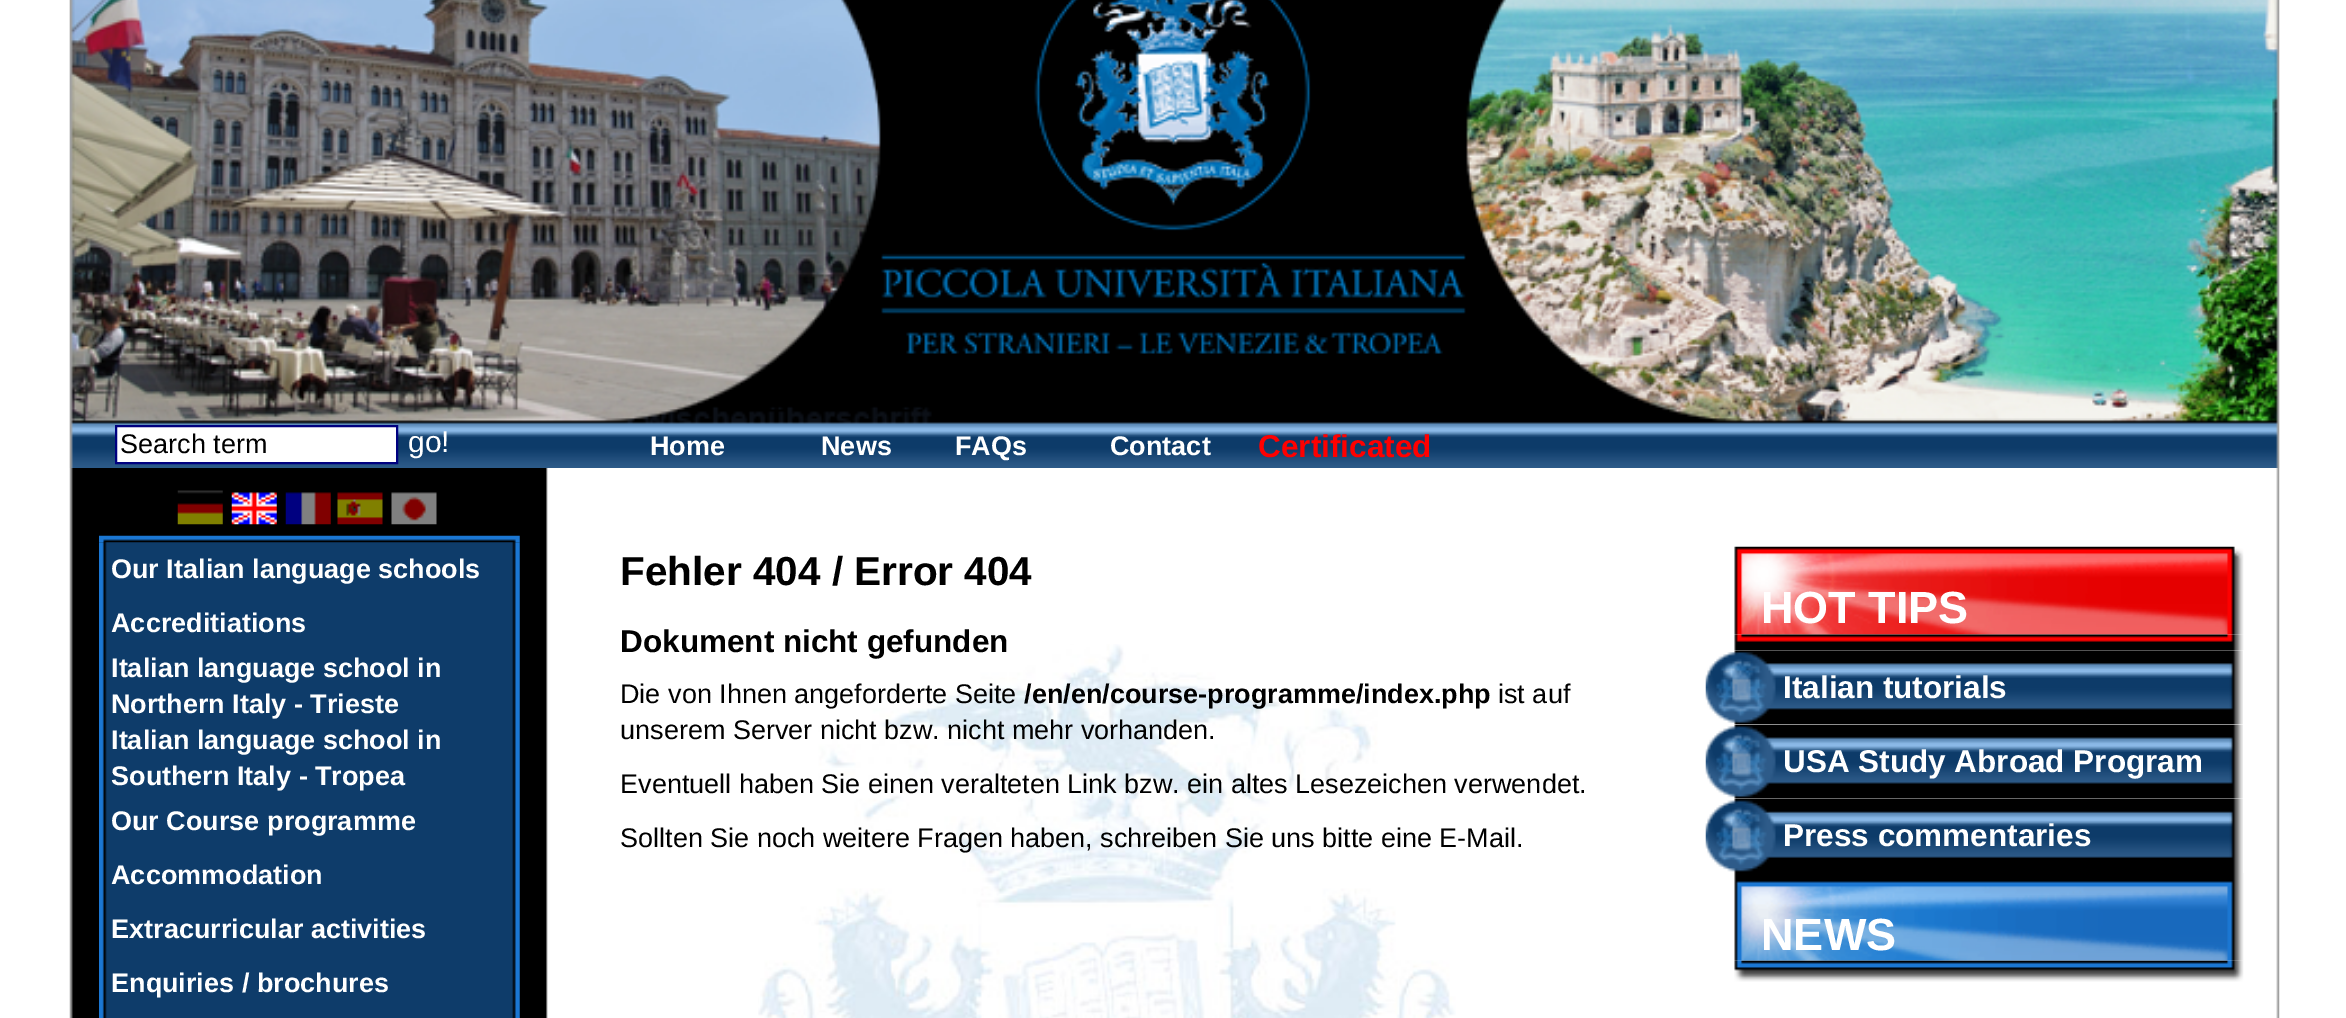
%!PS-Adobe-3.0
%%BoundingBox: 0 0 2346 1018
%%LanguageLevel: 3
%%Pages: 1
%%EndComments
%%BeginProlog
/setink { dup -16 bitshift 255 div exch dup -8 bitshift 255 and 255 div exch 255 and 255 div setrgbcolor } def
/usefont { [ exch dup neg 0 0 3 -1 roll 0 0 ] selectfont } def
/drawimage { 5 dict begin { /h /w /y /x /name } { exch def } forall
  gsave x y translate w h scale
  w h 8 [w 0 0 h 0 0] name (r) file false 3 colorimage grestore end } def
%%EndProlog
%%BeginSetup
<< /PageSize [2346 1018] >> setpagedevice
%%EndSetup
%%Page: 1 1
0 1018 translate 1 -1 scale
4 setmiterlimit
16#FFFFFF setink
0 0 2346 1018 rectfill
(img2.raw) 69 0 2211 1018 drawimage
(img1.raw) 69 0 2211 468 drawimage
116 426 moveto 397 426 lineto 397 463 lineto 116 463 lineto closepath gsave fill grestore
16#000080 setink
2 setlinewidth
stroke
/LiberationSans-Regular 27 usefont
16#000000 setink
120 453 moveto (Search term) show
/LiberationSans-Regular 30 usefont
16#FFFFFF setink
408 452 moveto (go!) show
/LiberationSans-Bold 27 usefont
[
    [(Home) 650 455]
    [(News) 821 455]
    [(FAQs) 955 455]
    [(Contact) 1110 455]
] { aload pop moveto show } forall
/LiberationSans-Bold 31.5 usefont
16#FF0000 setink
1258 457 moveto (Certificated) show
(img3.raw) 177 490 46 35 drawimage
(img4.raw) 231 492 46 33 drawimage
(img5.raw) 285 492 46 33 drawimage
(img6.raw) 337 492 46 33 drawimage
(img7.raw) 391 492 46 33 drawimage
(img8.raw) 99 535 421 8 drawimage
(img9.raw) 99 542 421 476 drawimage
/LiberationSans-Bold 27 usefont
16#FFFFFF setink
[
    [(Our Italian language schools) 111 578]
    [(Accreditiations) 111 632]
    [(Italian language school in) 111 677]
    [(Northern Italy - Trieste) 111 713]
    [(Italian language school in) 111 749]
    [(Southern Italy - Tropea) 111 785]
    [(Our Course programme) 111 830]
    [(Accommodation) 111 884]
    [(Extracurricular activities) 111 938]
    [(Enquiries / brochures) 111 992]
] { aload pop moveto show } forall
(img10.raw) 758 644 698 374 drawimage
/LiberationSans-Bold 40.5 usefont
16#000000 setink
620 585 moveto (Fehler 404 / Error 404) show
/LiberationSans-Bold 31.5 usefont
620 652 moveto (Dokument nicht gefunden) show
/LiberationSans-Regular 27 usefont
620 703 moveto (Die von Ihnen angeforderte Seite) show
/LiberationSans-Bold 27 usefont
1024 703 moveto (/en/en/course-programme/index.php) show
/LiberationSans-Regular 27 usefont
[
    [(ist auf) 1498 703]
    [(unserem Server nicht bzw. nicht mehr vorhanden.) 620 739]
    [(Eventuell haben Sie einen veralteten Link bzw. ein altes Lesezeichen verwendet.) 620 793]
    [(Sollten Sie noch weitere Fragen haben, schreiben Sie uns bitte eine E-Mail.) 620 847]
] { aload pop moveto show } forall
(img11.raw) 1734 546 510 89 drawimage
/LiberationSans-Bold 45 usefont
16#FFFFFF setink
1761 623 moveto (HOT TIPS) show
(img12.raw) 1734 634 510 17 drawimage
(img13.raw) 1705 650 538 75 drawimage
/LiberationSans-Bold 31.5 usefont
1783 698 moveto (Italian tutorials) show
(img14.raw) 1705 724 538 75 drawimage
1783 772 moveto (USA Study Abroad Program) show
(img15.raw) 1705 798 538 75 drawimage
1783 846 moveto (Press commentaries) show
(img16.raw) 1734 873 510 88 drawimage
/LiberationSans-Bold 45 usefont
1761 950 moveto (NEWS) show
(img17.raw) 1734 960 510 22 drawimage
showpage
%%EOF
